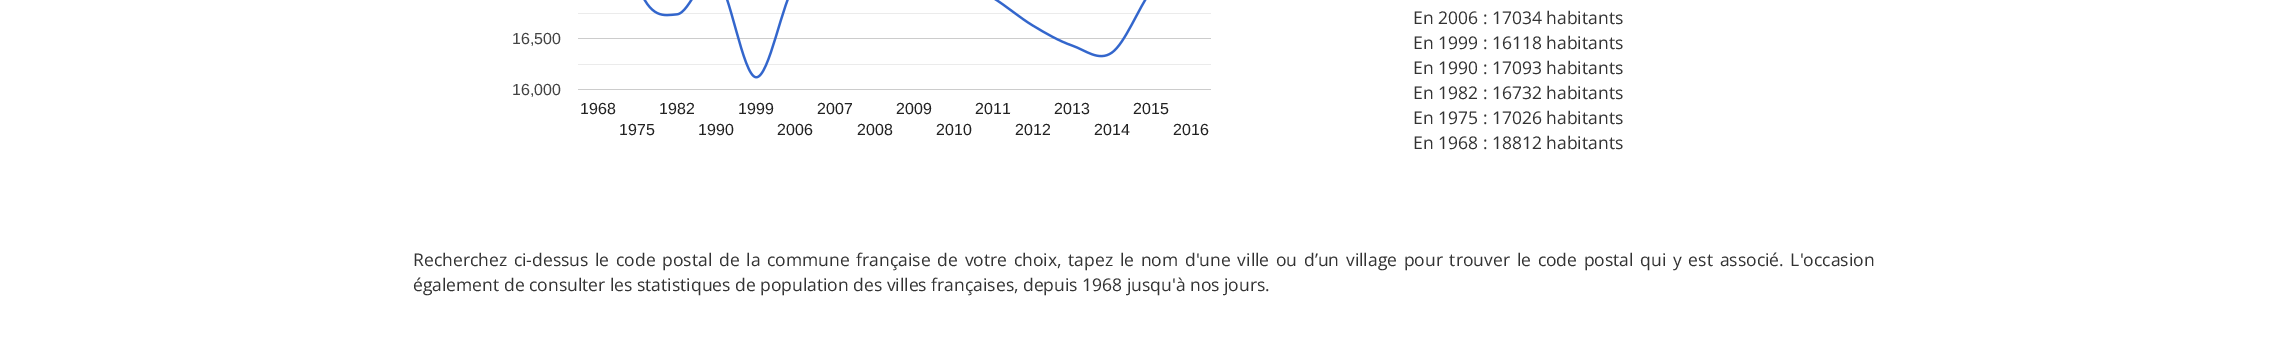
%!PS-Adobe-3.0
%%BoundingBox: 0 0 2287 363
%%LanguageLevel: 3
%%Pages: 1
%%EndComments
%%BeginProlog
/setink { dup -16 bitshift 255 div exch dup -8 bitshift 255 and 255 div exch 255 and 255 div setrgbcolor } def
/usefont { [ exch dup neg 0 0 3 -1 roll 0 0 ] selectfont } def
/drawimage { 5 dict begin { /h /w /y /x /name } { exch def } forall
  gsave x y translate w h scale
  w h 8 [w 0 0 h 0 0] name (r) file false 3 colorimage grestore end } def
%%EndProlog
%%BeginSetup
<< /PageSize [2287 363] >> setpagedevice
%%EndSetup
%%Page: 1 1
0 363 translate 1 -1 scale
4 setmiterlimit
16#FFFFFF setink
0 0 2287 363 rectfill
/LiberationSans-Regular 16 usefont
16#444444 setink
512 44 moveto (16,500) show
(img1.raw) 578 0 633 90 drawimage
512 95 moveto (16,000) show
16#222222 setink
[
    [(1968) 580 114]
    [(1982) 659 114]
    [(1999) 738 114]
    [(2007) 817 114]
    [(2009) 896 114]
    [(2011) 975 114]
    [(2013) 1054 114]
    [(2015) 1133 114]
    [(1975) 619 135]
    [(1990) 698 135]
    [(2006) 777 135]
    [(2008) 857 135]
    [(2010) 936 135]
    [(2012) 1015 135]
    [(2014) 1094 135]
    [(2016) 1173 135]
] { aload pop moveto show } forall
/OpenSans-Regular 17.5 usefont
16#333333 setink
[
    [(En 2006 : 17034 habitants) 1413 24]
    [(En 1999 : 16118 habitants) 1413 49]
    [(En 1990 : 17093 habitants) 1413 74]
    [(En 1982 : 16732 habitants) 1413 99]
    [(En 1975 : 17026 habitants) 1413 124]
    [(En 1968 : 18812 habitants) 1413 149]
] { aload pop moveto show } forall
413 266 moveto 2.2 0 32 (Recherchez ci-dessus le code postal de la commune française de votre choix, tapez le nom d'une ville ou d’un village pour trouver le code postal qui y est associé. L'occasion) widthshow
413 291 moveto (également de consulter les statistiques de population des villes françaises, depuis 1968 jusqu'à nos jours.) show
showpage
%%EOF
